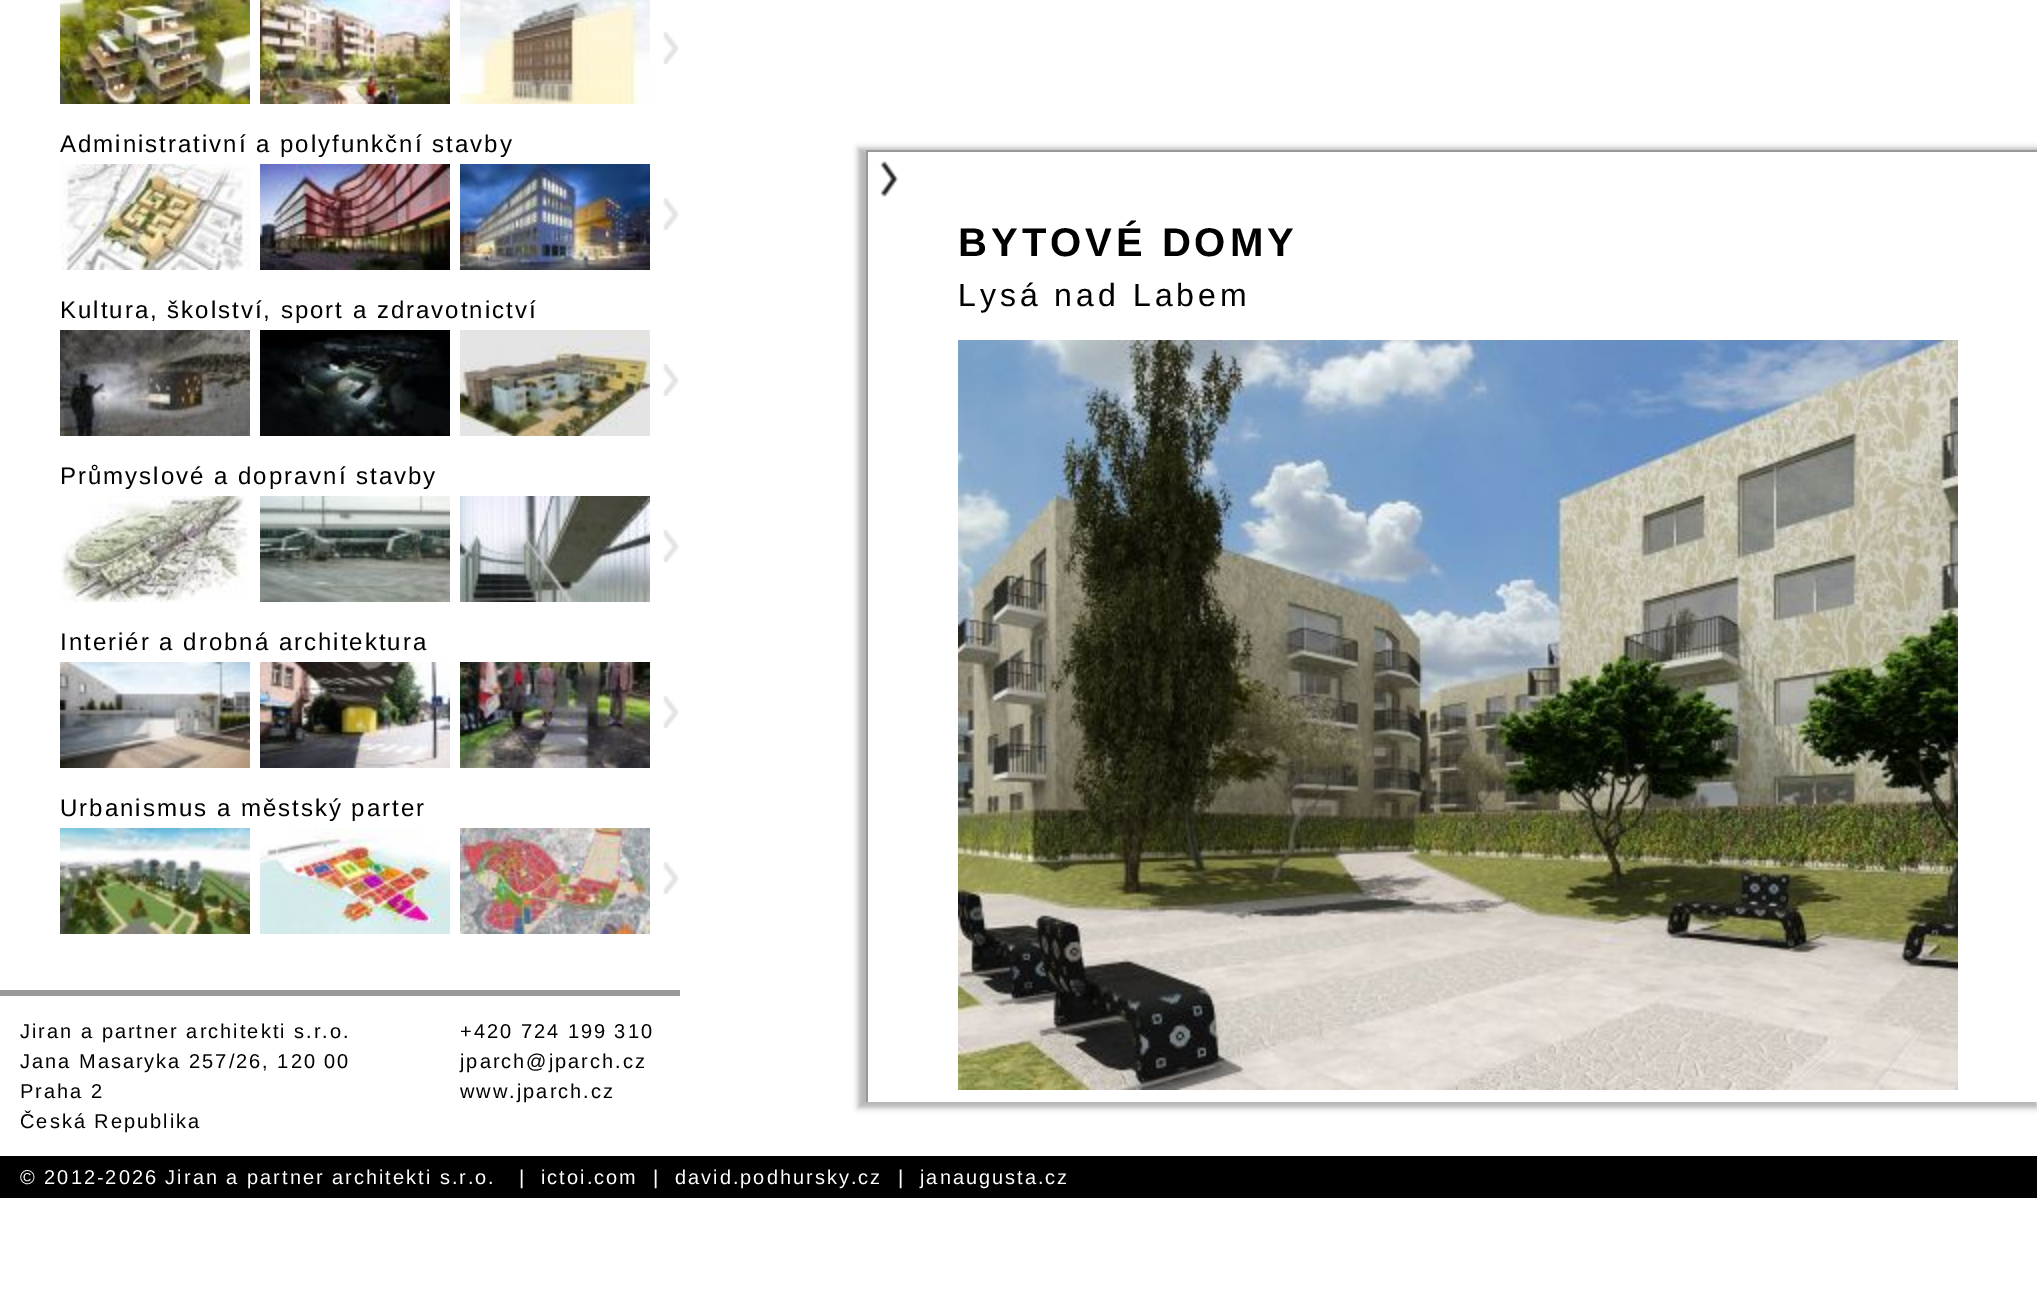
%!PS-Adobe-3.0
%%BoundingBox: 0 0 2037 1305
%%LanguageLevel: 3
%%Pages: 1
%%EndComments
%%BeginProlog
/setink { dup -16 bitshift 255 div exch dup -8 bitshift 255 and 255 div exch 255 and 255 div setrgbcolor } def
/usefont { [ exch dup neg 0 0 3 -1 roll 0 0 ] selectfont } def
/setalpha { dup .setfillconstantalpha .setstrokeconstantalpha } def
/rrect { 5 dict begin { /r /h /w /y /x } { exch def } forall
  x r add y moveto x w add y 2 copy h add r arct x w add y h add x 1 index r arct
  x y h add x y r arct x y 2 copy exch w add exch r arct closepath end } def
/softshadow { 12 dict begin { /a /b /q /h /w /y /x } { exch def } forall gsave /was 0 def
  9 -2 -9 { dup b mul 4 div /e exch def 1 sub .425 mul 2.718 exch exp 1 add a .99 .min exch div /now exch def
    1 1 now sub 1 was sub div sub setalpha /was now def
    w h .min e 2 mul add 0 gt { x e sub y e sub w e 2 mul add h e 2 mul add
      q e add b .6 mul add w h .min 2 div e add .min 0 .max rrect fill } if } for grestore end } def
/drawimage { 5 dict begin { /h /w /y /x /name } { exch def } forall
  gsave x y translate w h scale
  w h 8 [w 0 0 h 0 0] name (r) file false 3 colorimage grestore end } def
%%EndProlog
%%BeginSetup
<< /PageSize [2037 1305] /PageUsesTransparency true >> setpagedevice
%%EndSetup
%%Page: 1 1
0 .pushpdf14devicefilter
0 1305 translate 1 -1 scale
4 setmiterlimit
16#FFFFFF setink
0 0 2037 1305 rectfill
(img1.raw) 60 0 190 104 drawimage
(img2.raw) 260 0 190 104 drawimage
(img3.raw) 460 0 190 104 drawimage
(img4.raw) 663 32 16 32 drawimage
/LiberationSans-Regular 24 usefont
16#000000 setink
60 152 moveto 2 0 (Administrativní a polyfunkční stavby) ashow
(img5.raw) 60 164 190 106 drawimage
(img6.raw) 260 164 190 106 drawimage
(img7.raw) 460 164 190 106 drawimage
(img4.raw) 663 198 16 32 drawimage
60 318 moveto 2 0 (Kultura, školství, sport a zdravotnictví) ashow
(img8.raw) 60 330 190 106 drawimage
(img9.raw) 260 330 190 106 drawimage
(img10.raw) 460 330 190 106 drawimage
(img4.raw) 663 364 16 32 drawimage
60 484 moveto 2 0 (Průmyslové a dopravní stavby) ashow
(img11.raw) 60 496 188 106 drawimage
(img12.raw) 260 496 190 106 drawimage
(img13.raw) 460 496 190 106 drawimage
(img4.raw) 663 530 16 32 drawimage
60 650 moveto 2 0 (Interiér a drobná architektura) ashow
(img14.raw) 60 662 190 106 drawimage
(img15.raw) 260 662 190 106 drawimage
(img16.raw) 460 662 190 106 drawimage
(img4.raw) 663 696 16 32 drawimage
60 816 moveto 2 0 (Urbanismus a městský parter) ashow
(img17.raw) 60 828 190 106 drawimage
(img18.raw) 260 828 190 106 drawimage
(img19.raw) 460 828 190 106 drawimage
(img4.raw) 663 862 16 32 drawimage
16#999999 setink
0 990 680 6 rectfill
/LiberationSans-Regular 20 usefont
16#000000 setink
20 1038 moveto 2 0 (Jiran a partner architekti s.r.o.) ashow
20 1068 moveto 2 0 (Jana Masaryka 257/26, 120 00) ashow
20 1098 moveto 2 0 (Praha 2) ashow
20 1128 moveto 2 0 (Česká Republika) ashow
460 1038 moveto 2 0 (+420 724 199 310) ashow
460 1068 moveto 2 0 (jparch@jparch.cz) ashow
460 1098 moveto 2 0 (www.jparch.cz) ashow
gsave
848 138 moveto 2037 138 lineto 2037 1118 lineto 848 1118 lineto closepath 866 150 moveto 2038 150 lineto 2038 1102 lineto 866 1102 lineto closepath eoclip newpath
858 148 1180 960 0 3 0.3 softshadow
grestore
16#999999 setink
866 150 1171 2 rectfill
866 150 2 952 rectfill
(img20.raw) 879 161 20 36 drawimage
/LiberationSans-Bold 40 usefont
16#000000 setink
958 256 moveto 4 0 (BYTOVÉ DOMY) ashow
/LiberationSans-Regular 32 usefont
958 306 moveto 4 0 (Lysá nad Labem) ashow
(img21.raw) 958 340 1000 750 drawimage
0 1156 2037 42 rectfill
/LiberationSans-Regular 20 usefont
16#FFFFFF setink
20 1184 moveto 2 0 (© 2012-2026 Jiran a partner architekti s.r.o.   |) ashow
541 1184 moveto 2 0 (ictoi.com) ashow
653 1184 moveto 2 0 (|) ashow
675 1184 moveto 2 0 (david.podhursky.cz) ashow
898 1184 moveto 2 0 (|) ashow
920 1184 moveto 2 0 (janaugusta.cz) ashow
.poppdf14devicefilter showpage
%%EOF
